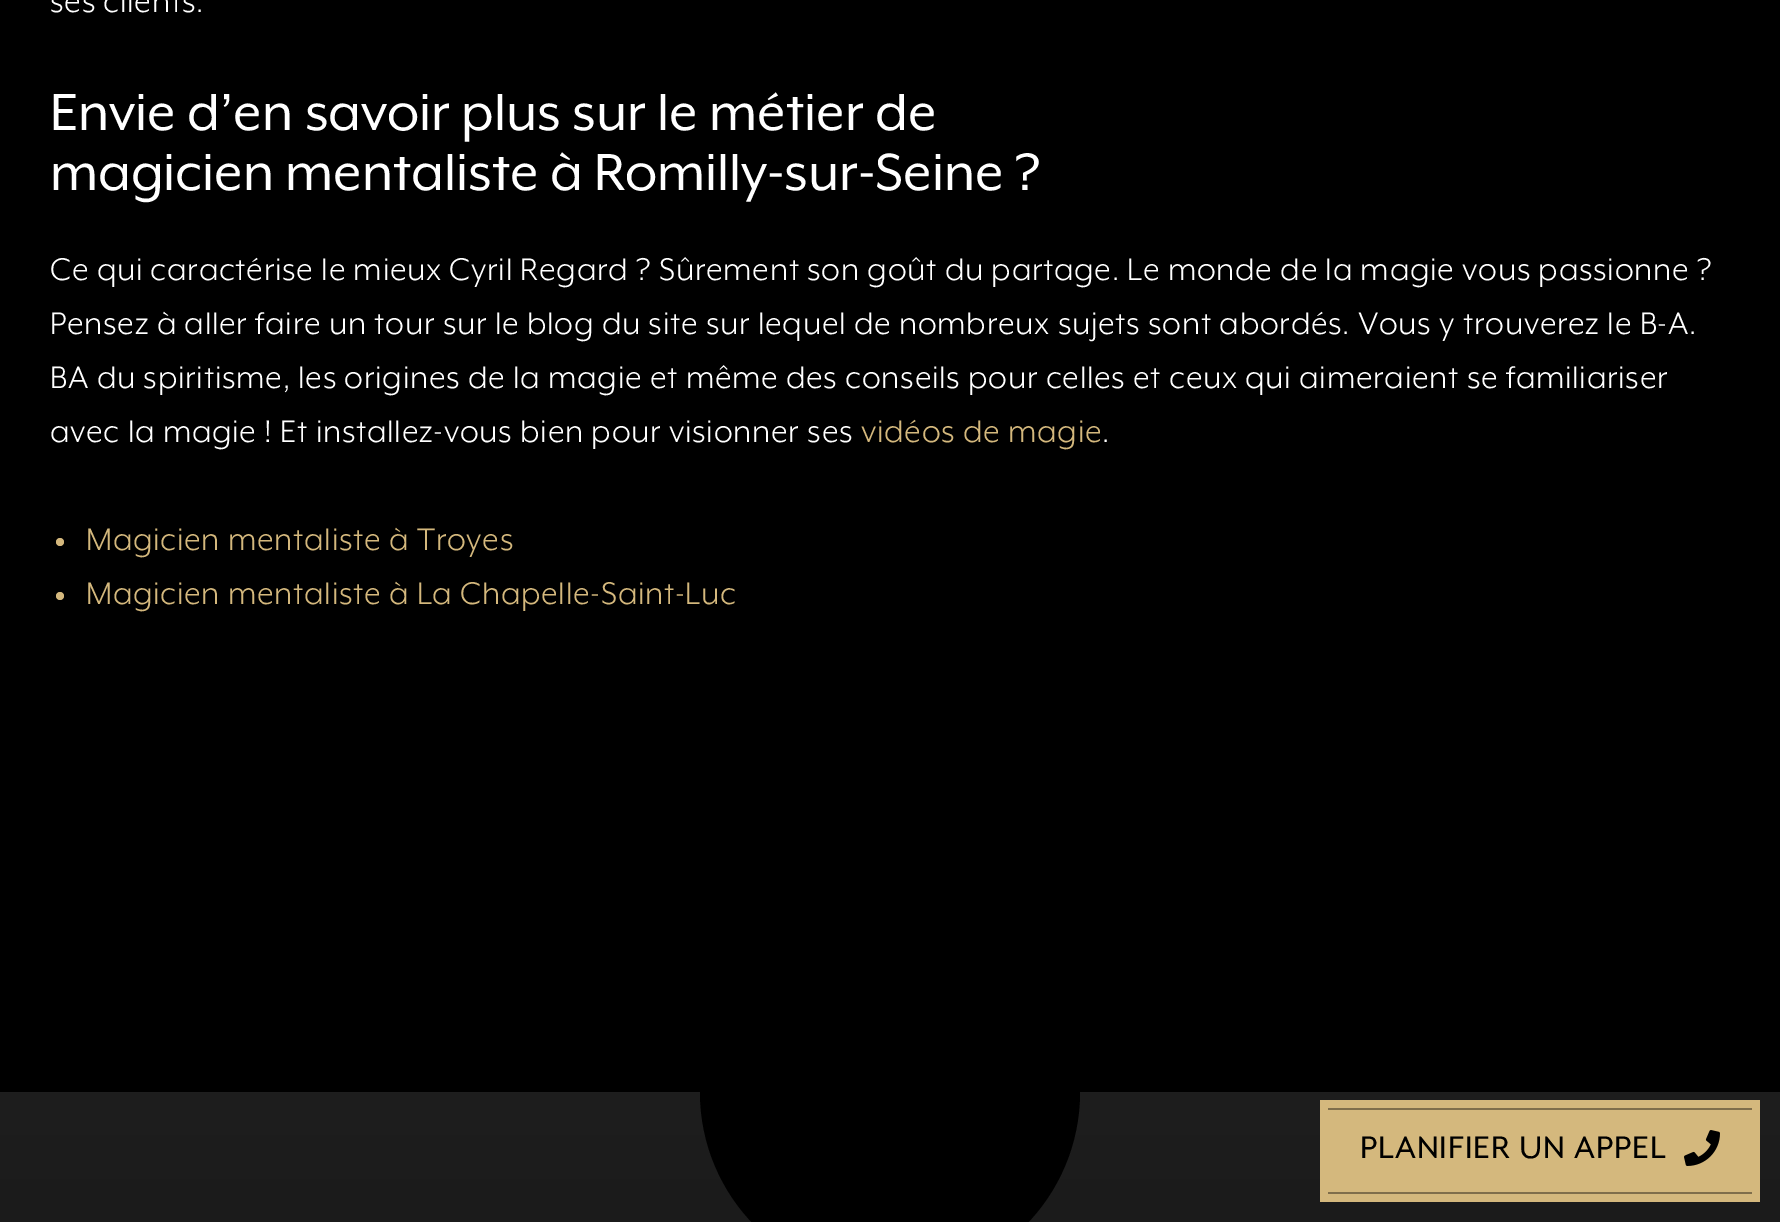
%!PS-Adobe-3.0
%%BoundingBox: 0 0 1780 1222
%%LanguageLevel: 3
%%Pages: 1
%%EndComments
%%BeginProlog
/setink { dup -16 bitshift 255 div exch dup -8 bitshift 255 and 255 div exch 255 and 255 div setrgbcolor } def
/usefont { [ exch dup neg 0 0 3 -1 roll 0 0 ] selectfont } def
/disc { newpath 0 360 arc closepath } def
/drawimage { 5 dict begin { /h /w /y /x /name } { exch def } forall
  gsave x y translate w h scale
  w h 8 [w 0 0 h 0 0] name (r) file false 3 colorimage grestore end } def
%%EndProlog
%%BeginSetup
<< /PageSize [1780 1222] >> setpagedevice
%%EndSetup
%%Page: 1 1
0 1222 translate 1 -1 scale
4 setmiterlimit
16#000000 setink
0 0 1780 1222 rectfill
/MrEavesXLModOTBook-Regular 36 usefont
16#FFFFFF setink
50 12 moveto 0.72 0 (ses clients.) ashow
/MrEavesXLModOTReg-Regular 60 usefont
50 130 moveto (Envie d’en savoir plus sur le métier de) show
50 190 moveto (magicien mentaliste à Romilly-sur-Seine ?) show
/MrEavesXLModOTBook-Regular 36 usefont
50 280 moveto 0.72 0 (Ce qui caractérise le mieux Cyril Regard ? Sûrement son goût du partage. Le monde de la magie vous passionne ?) ashow
50 334 moveto 0.72 0 (Pensez à aller faire un tour sur le blog du site sur lequel de nombreux sujets sont abordés. Vous y trouverez le B-A.) ashow
50 388 moveto 0.72 0 (BA du spiritisme, les origines de la magie et même des conseils pour celles et ceux qui aimeraient se familiariser) ashow
50 442 moveto 0.72 0 (avec la magie ! Et installez-vous bien pour visionner ses) ashow
16#D4B87D setink
861 442 moveto 0.72 0 (vidéos de magie) ashow
16#FFFFFF setink
1102 442 moveto 0.72 0 (.) ashow
16#D4B87D setink
60 542 4 disc fill
86 550 moveto 0.72 0 (Magicien mentaliste à Troyes) ashow
60 596 4 disc fill
86 604 moveto 0.72 0 (Magicien mentaliste à La Chapelle-Saint-Luc) ashow
gsave 0 1092 moveto 1780 1092 lineto 1780 1222 lineto 0 1222 lineto closepath clip newpath
<< /ShadingType 2 /ColorSpace /DeviceRGB /Coords [890 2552 890 1092] /Extend [true true] /Function << /FunctionType 2 /Domain [0 1] /C0 [0 0 0] /C1 [0.118 0.118 0.118] /N 1 >> >> shfill grestore
16#000000 setink
890 1092 190 disc fill
16#D4B87D setink
1320 1100 440 102 rectfill
16#7F6E4B setink
1328 1108 424 2 rectfill
/MrEavesXLModOTReg-Regular 36 usefont
16#000000 setink
1360 1158 moveto 1.1 0 (PLANIFIER UN APPEL) ashow
(img1.raw) 1684 1130 36 36 drawimage
16#7F6E4B setink
1328 1192 424 2 rectfill
showpage
%%EOF
